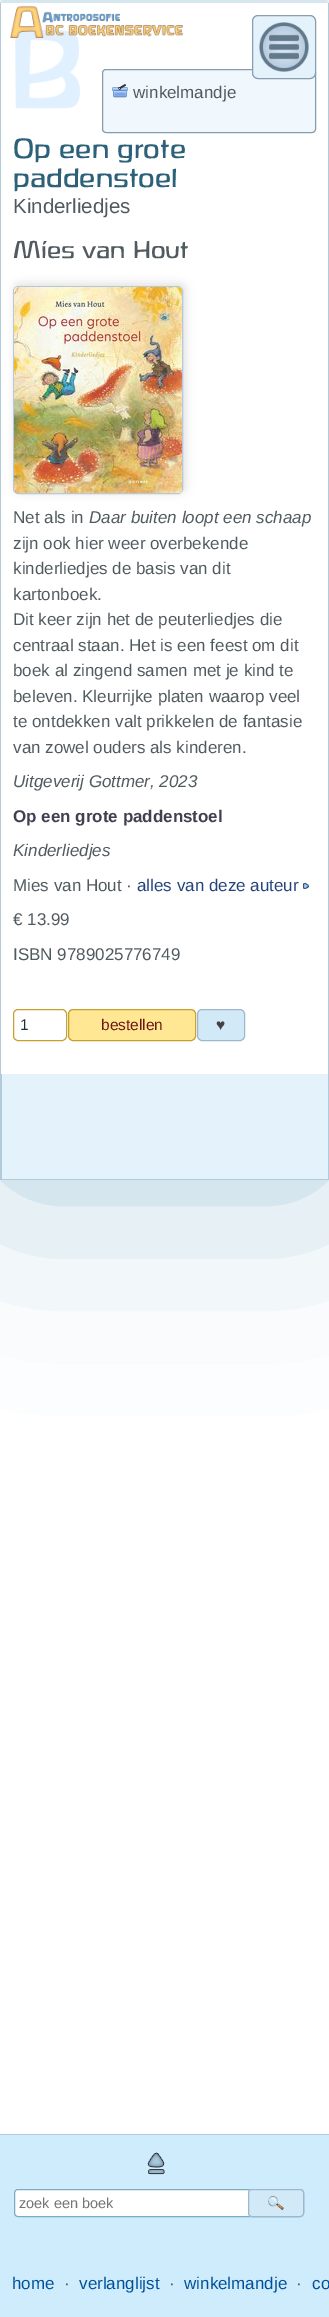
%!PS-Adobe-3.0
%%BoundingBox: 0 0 329 2317
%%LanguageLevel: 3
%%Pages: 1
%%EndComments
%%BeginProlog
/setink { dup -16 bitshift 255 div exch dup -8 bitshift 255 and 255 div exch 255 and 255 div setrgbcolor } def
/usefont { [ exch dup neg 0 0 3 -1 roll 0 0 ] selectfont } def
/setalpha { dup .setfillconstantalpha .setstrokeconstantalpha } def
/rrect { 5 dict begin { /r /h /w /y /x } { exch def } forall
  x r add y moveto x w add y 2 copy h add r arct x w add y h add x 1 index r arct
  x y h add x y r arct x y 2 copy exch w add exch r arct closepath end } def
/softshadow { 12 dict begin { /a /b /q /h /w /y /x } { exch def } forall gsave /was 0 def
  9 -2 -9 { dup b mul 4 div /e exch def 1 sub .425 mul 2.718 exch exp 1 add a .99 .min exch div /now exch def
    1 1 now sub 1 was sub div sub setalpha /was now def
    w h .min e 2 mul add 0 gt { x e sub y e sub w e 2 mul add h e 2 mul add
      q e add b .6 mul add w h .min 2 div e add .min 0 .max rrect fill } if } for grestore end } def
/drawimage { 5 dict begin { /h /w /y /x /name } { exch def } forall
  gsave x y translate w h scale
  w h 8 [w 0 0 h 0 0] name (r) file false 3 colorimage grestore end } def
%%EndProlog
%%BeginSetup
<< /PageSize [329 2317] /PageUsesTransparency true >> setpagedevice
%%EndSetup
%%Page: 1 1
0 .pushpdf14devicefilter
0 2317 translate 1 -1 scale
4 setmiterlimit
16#FFFFFF setink
0 0 329 2317 rectfill
gsave
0 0 moveto 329 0 lineto 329 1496 lineto 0 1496 lineto closepath 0 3 moveto 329 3 lineto 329 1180 lineto 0 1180 lineto closepath eoclip newpath
16#A2C6DA setink
0 3 329 1177 0 105 0.9 softshadow
grestore
(img1.raw) 10 5 173 104 drawimage
[
    [328 3 1 1177 16#B2CBDB]
    [0 1179 329 1 16#B2CBDB]
    [0 3 1 1177 16#B2CBDB]
] { aload pop setink rectfill } forall
16#E6F2FB setink
102 69 214 64 4 rrect fill
0.4 setalpha
16#FFFFFF setink
102 69 214 64 rectfill
1 setalpha
16#889CAF setink
102.5 69.5 213 63 3.5 rrect stroke
16#E3F2FB setink
252.5 15.5 63 63 5.5 rrect gsave fill grestore
16#8B9EAE setink
stroke
(img2.raw) 259 22 50 50 drawimage
(img3.raw) 112 83 16 15 drawimage
/LiberationSans-Regular 17 usefont
16#505A5F setink
133 98 moveto (winkelmandje) show
/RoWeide-Regular 29 usefont
16#2D6079 setink
13 158 moveto (Op een grote) show
13 187 moveto (paddenstoel) show
/LiberationSans-Regular 20.5 usefont
16#505A5F setink
13 213 moveto (Kinderliedjes) show
/RoWeide-Regular 25.5 usefont
13 258 moveto (Mies van Hout) show
16#DDDDDD setink
15 284 170 208 5 5 1 softshadow
16#B6C8DC setink
13.5 286.5 169 207 4.5 rrect stroke
(img4.raw) 14 287 168 206 drawimage
/LiberationSans-Regular 17 usefont
16#505A5F setink
13 523 moveto (Net als in) show
/LiberationSans-Italic 17 usefont
89 523 moveto (Daar buiten loopt een schaap) show
/LiberationSans-Regular 17 usefont
[
    [(zijn ook hier weer overbekende) 13 549]
    [(kinderliedjes de basis van dit) 13 574]
    [(kartonboek.) 13 600]
    [(Dit keer zijn het de peuterliedjes die) 13 625]
    [(centraal staan. Het is een feest om dit) 13 651]
    [(boek al zingend samen met je kind te) 13 676]
    [(beleven. Kleurrijke platen waarop veel) 13 702]
    [(te ontdekken valt prikkelen de fantasie) 13 727]
    [(van zowel ouders als kinderen.) 13 753]
] { aload pop moveto show } forall
/LiberationSans-Italic 17 usefont
13 787 moveto (Uitgeverij Gottmer, 2023) show
/LiberationSans-Bold 17 usefont
16#404050 setink
13 822 moveto (Op een grote paddenstoel) show
/LiberationSans-Italic 17 usefont
16#505A5F setink
13 856 moveto (Kinderliedjes) show
/LiberationSans-Regular 17 usefont
13 891 moveto (Mies van Hout ·) show
16#25437D setink
137 891 moveto (alles van deze auteur) show
(img5.raw) 303 883 6 6 drawimage
16#505A5F setink
13 925 moveto (€ 13.99) show
13 960 moveto (ISBN 9789025776749) show
16#C8A030 setink
13.5 1009.5 53 31 4.5 rrect stroke
/LiberationSans-Regular 15.5 usefont
16#1E323A setink
20 1030 moveto (1) show
16#FFE794 setink
68.5 1009.5 127 31 4.5 rrect gsave fill grestore
16#C8A030 setink
stroke
16#6B1911 setink
101 1030 moveto (bestellen) show
16#D2EAF7 setink
197.5 1009.5 47 31 4.5 rrect gsave fill grestore
16#9CB7CE setink
stroke
16#444045 setink
216 1030 moveto (♥) show
[
    [2 1074 326 105 16#E3F2FB]
    [1 1074 1 105 16#B6C9DC]
    [0 2135 329 182 16#CFECFD]
    [0 2134 329 1 16#ADCADC]
] { aload pop setink rectfill } forall
(img6.raw) 147 2152 18 23 drawimage
16#FFFFFF setink
14.5 2189.5 289 27 3.5 rrect gsave fill grestore
16#7BABC3 setink
stroke
/LiberationSans-Regular 14.5 usefont
16#757575 setink
19 2208 moveto (zoek een boek) show
16#D2EAF7 setink
248 2189 56 28 4 rrect fill
(img7.raw) 268 2195 16 16 drawimage
16#9CB7CE setink
248.5 2189.5 55 27 3.5 rrect stroke
/LiberationSans-Regular 17 usefont
16#00509A setink
12 2289 moveto (home) show
16#505A5F setink
64 2289 moveto (·) show
16#00509A setink
79 2289 moveto (verlanglijst) show
16#505A5F setink
169 2289 moveto (·) show
16#00509A setink
184 2289 moveto (winkelmandje) show
16#505A5F setink
296 2289 moveto (·) show
16#00509A setink
312 2289 moveto (co) show
.poppdf14devicefilter showpage
%%EOF
